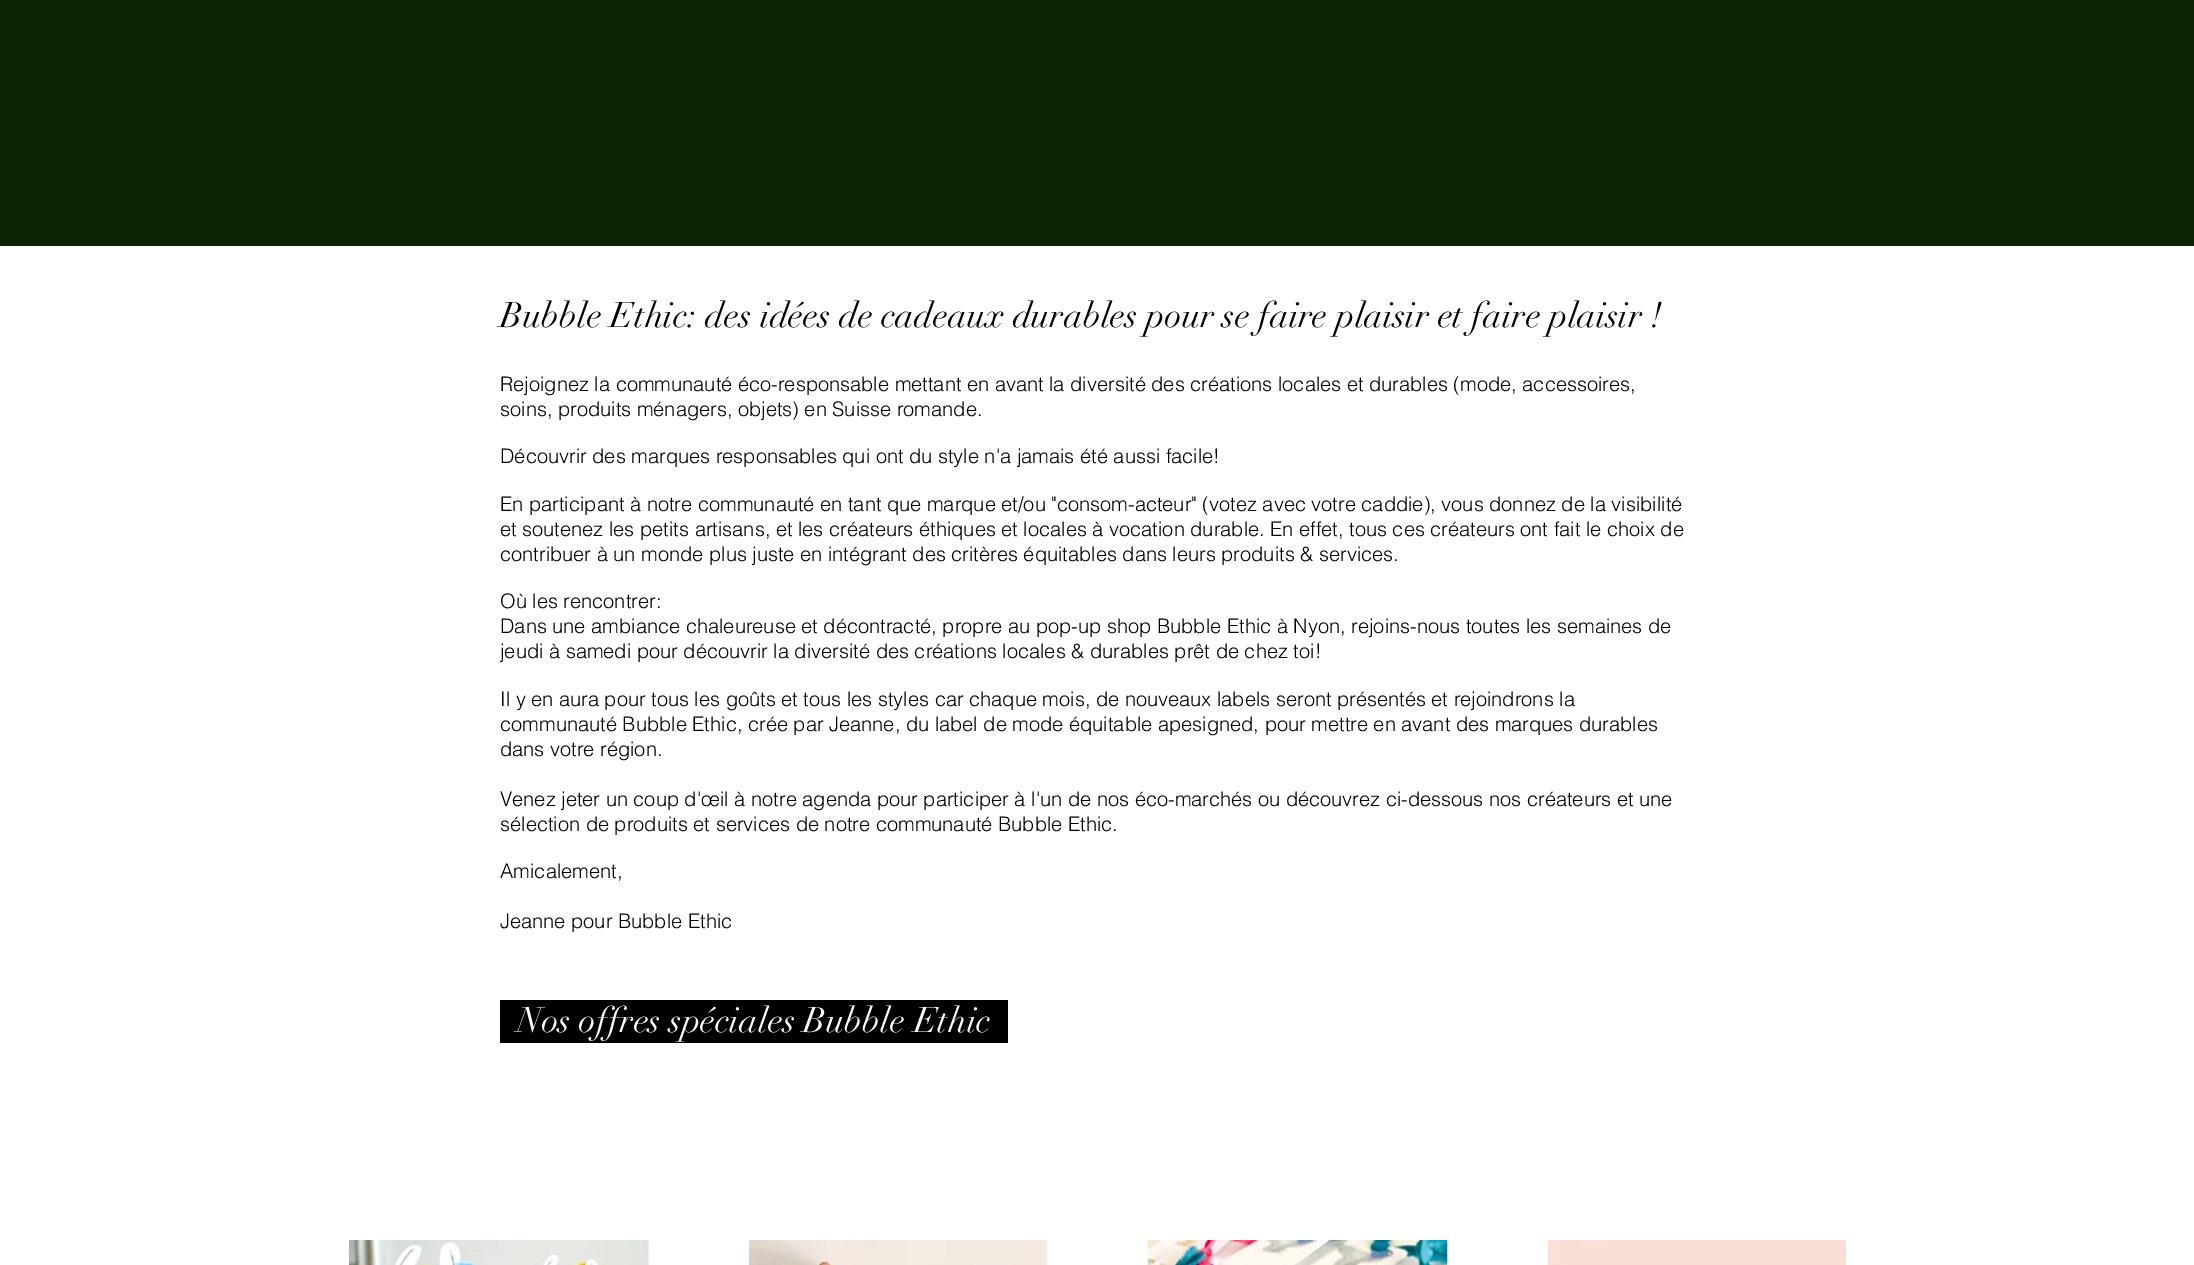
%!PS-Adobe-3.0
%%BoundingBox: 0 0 2194 1265
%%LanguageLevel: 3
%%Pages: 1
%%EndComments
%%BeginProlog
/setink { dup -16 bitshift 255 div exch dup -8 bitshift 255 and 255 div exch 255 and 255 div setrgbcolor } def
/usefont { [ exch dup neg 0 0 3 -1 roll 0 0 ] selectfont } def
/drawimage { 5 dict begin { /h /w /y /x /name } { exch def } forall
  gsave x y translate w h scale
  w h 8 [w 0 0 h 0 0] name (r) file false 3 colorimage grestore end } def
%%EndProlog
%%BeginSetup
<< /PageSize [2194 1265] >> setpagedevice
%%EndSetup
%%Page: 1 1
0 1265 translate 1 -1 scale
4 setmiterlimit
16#FFFFFF setink
0 0 2194 1265 rectfill
16#0A2405 setink
0 0 2194 246 rectfill
/didot-Regular 35 usefont
16#000000 setink
500 327 moveto (Bubble Ethic: des idées de cadeaux durables pour se faire plaisir et faire plaisir !) show
/helvetica-Light 20 usefont
[
    [(Rejoignez la communauté éco-responsable mettant en avant la diversité des créations locales et durables \(mode, accessoires,) 500 391]
    [(soins, produits ménagers, objets\) en Suisse romande.) 500 416]
    [(Découvrir des marques responsables qui ont du style n'a jamais été aussi facile!) 500 463]
    [(En participant à notre communauté en tant que marque et/ou "consom-acteur" \(votez avec votre caddie\), vous donnez de la visibilité) 500 511]
    [(et soutenez les petits artisans, et les créateurs éthiques et locales à vocation durable. En effet, tous ces créateurs ont fait le choix de) 500 536]
    [(contribuer à un monde plus juste en intégrant des critères équitables dans leurs produits & services.) 500 561]
    [(Où les rencontrer:) 500 608]
    [(Dans une ambiance chaleureuse et décontracté, propre au pop-up shop Bubble Ethic à Nyon, rejoins-nous toutes les semaines de) 500 633]
    [(jeudi à samedi pour découvrir la diversité des créations locales & durables prêt de chez toi!) 500 658]
    [(Il y en aura pour tous les goûts et tous les styles car chaque mois, de nouveaux labels seront présentés et rejoindrons la) 500 706]
    [(communauté Bubble Ethic, crée par Jeanne, du label de mode équitable apesigned, pour mettre en avant des marques durables) 500 731]
    [(dans votre région.) 500 756]
    [(Venez jeter un coup d'œil à notre agenda pour participer à l'un de nos éco-marchés ou découvrez ci-dessous nos créateurs et une) 500 806]
    [(sélection de produits et services de notre communauté Bubble Ethic.) 500 831]
    [(Amicalement,) 500 878]
    [(Jeanne pour Bubble Ethic) 500 928]
] { aload pop moveto show } forall
500 1000 508 43 rectfill
/didot-Regular 35 usefont
16#FFFFFF setink
517 1032 moveto (Nos offres spéciales Bubble Ethic) show
(img1.raw) 348 1240 301 25 drawimage
(img2.raw) 748 1240 300 25 drawimage
(img3.raw) 1147 1240 301 25 drawimage
(img4.raw) 1547 1240 299 25 drawimage
showpage
%%EOF
